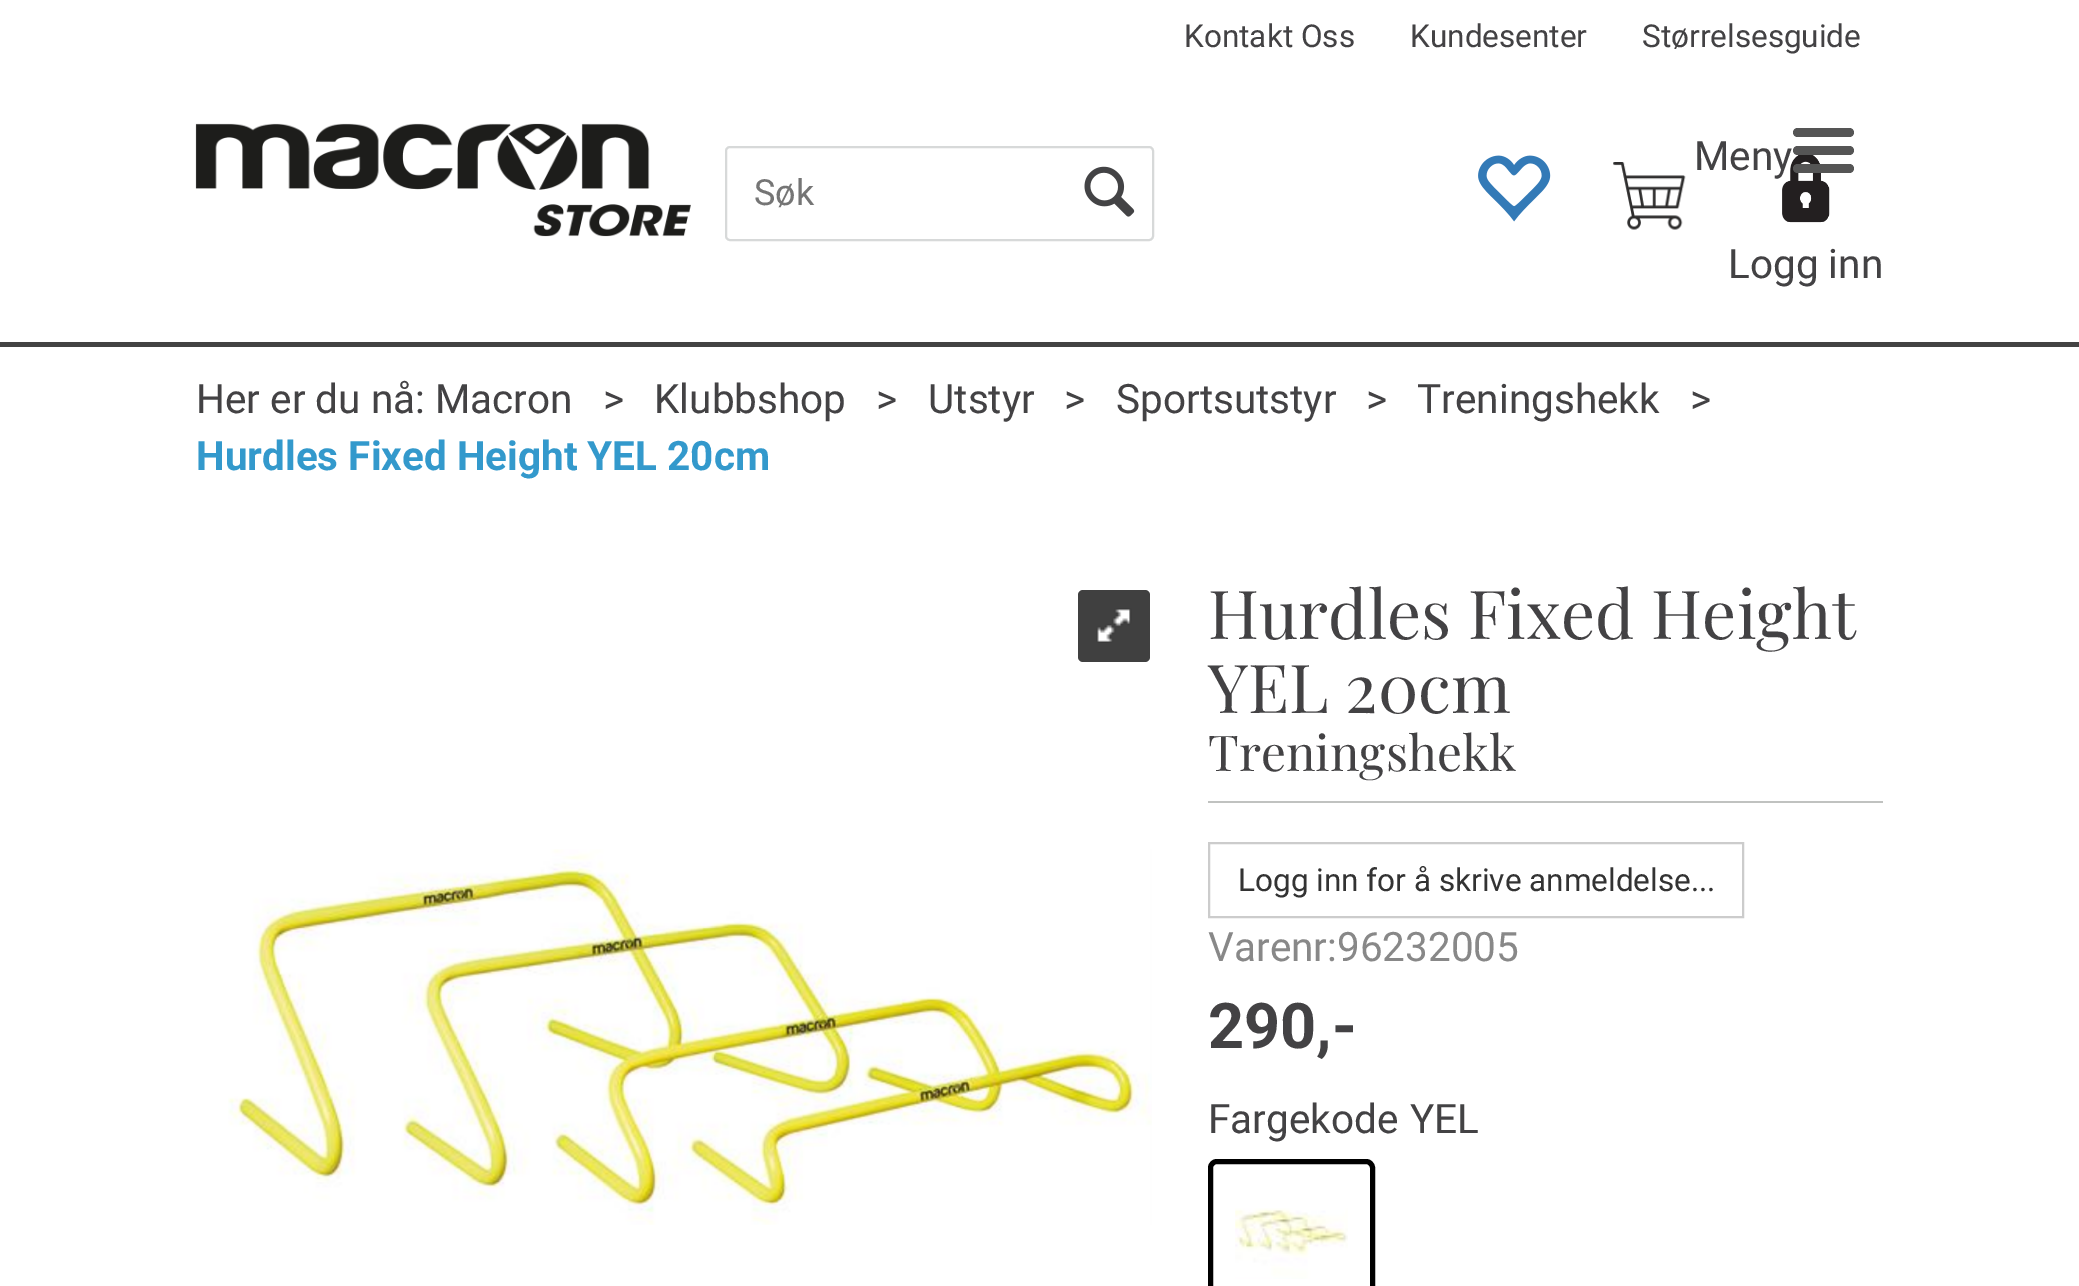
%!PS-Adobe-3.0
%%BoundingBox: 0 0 2079 1286
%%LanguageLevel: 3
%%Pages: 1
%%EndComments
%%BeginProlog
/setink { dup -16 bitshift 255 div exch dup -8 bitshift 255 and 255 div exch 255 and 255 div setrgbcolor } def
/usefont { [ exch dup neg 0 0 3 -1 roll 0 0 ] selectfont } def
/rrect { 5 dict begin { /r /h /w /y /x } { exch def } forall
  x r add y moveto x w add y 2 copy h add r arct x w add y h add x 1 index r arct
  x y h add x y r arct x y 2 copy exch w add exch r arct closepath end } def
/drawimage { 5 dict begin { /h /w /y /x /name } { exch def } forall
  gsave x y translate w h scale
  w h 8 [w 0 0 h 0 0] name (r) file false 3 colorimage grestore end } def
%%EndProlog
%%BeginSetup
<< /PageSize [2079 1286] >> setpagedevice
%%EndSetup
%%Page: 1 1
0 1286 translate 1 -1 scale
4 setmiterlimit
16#FFFFFF setink
0 0 2079 1286 rectfill
/Roboto-Regular 31.5 usefont
16#434244 setink
[
    [(Kontakt Oss) 1184 47]
    [(Kundesenter) 1410 47]
    [(Størrelsesguide) 1642 47]
] { aload pop moveto show } forall
(img1.raw) 195 123 496 114 drawimage
16#D7D9D9 setink
2 setlinewidth
726 147 427 93 4 rrect stroke
/Roboto-Regular 36 usefont
16#757575 setink
754 205 moveto (Søk) show
(img2.raw) 1084 166 51 51 drawimage
(img3.raw) 1478 155 73 67 drawimage
(img4.raw) 1613 162 73 68 drawimage
16#555555 setink
1793 128 61 9 4.5 rrect fill
(img5.raw) 1782 155 48 68 drawimage
/Roboto-Regular 40.5 usefont
16#434244 setink
1694 170 moveto (Meny) show
16#555555 setink
1793 146 61 9 4.5 rrect fill
1793 164 61 9 4.5 rrect fill
16#434244 setink
1728 278 moveto (Logg inn) show
16#434343 setink
0 342 2079 5 rectfill
16#434244 setink
[
    [(Her er du nå: Macron) 196 413]
    [(>) 603 413]
    [(Klubbshop) 654 413]
    [(>) 876 413]
    [(Utstyr) 928 413]
    [(>) 1064 413]
    [(Sportsutstyr) 1116 413]
    [(>) 1366 413]
    [(Treningshekk) 1417 413]
    [(>) 1690 413]
] { aload pop moveto show } forall
/Roboto-Bold 40.5 usefont
16#3399CC setink
196 470 moveto (Hurdles Fixed Height YEL 20cm) show
16#404040 setink
1078 590 72 72 5 rrect fill
(img6.raw) 1096 608 36 35 drawimage
(img7.raw) 228 849 924 376 drawimage
16#C0C2C0 setink
1208 801 675 2 rectfill
/PlayfairDisplay-Regular 67.5 usefont
16#434244 setink
1208 639 moveto (Hurdles Fixed Height) show
1208 713 moveto (YEL 20cm) show
/PlayfairDisplay-Regular 49.5 usefont
1208 771 moveto (Treningshekk) show
16#CCCCCC setink
1209 843 534 74 rectstroke
/Roboto-Regular 31.5 usefont
16#333333 setink
1238 891 moveto (Logg inn for å skrive anmeldelse...) show
/Roboto-Regular 40.5 usefont
16#888888 setink
1208 961 moveto (Varenr:96232005) show
/Roboto-Bold 63 usefont
16#434244 setink
1208 1048 moveto (290,-) show
/Roboto-Regular 40.5 usefont
1208 1133 moveto (Fargekode) show
1410 1133 moveto (YEL) show
16#000000 setink
5 setlinewidth
1210.5 1161.5 162 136 6.5 rrect stroke
(img8.raw) 1235 1208 113 71 drawimage
showpage
%%EOF
